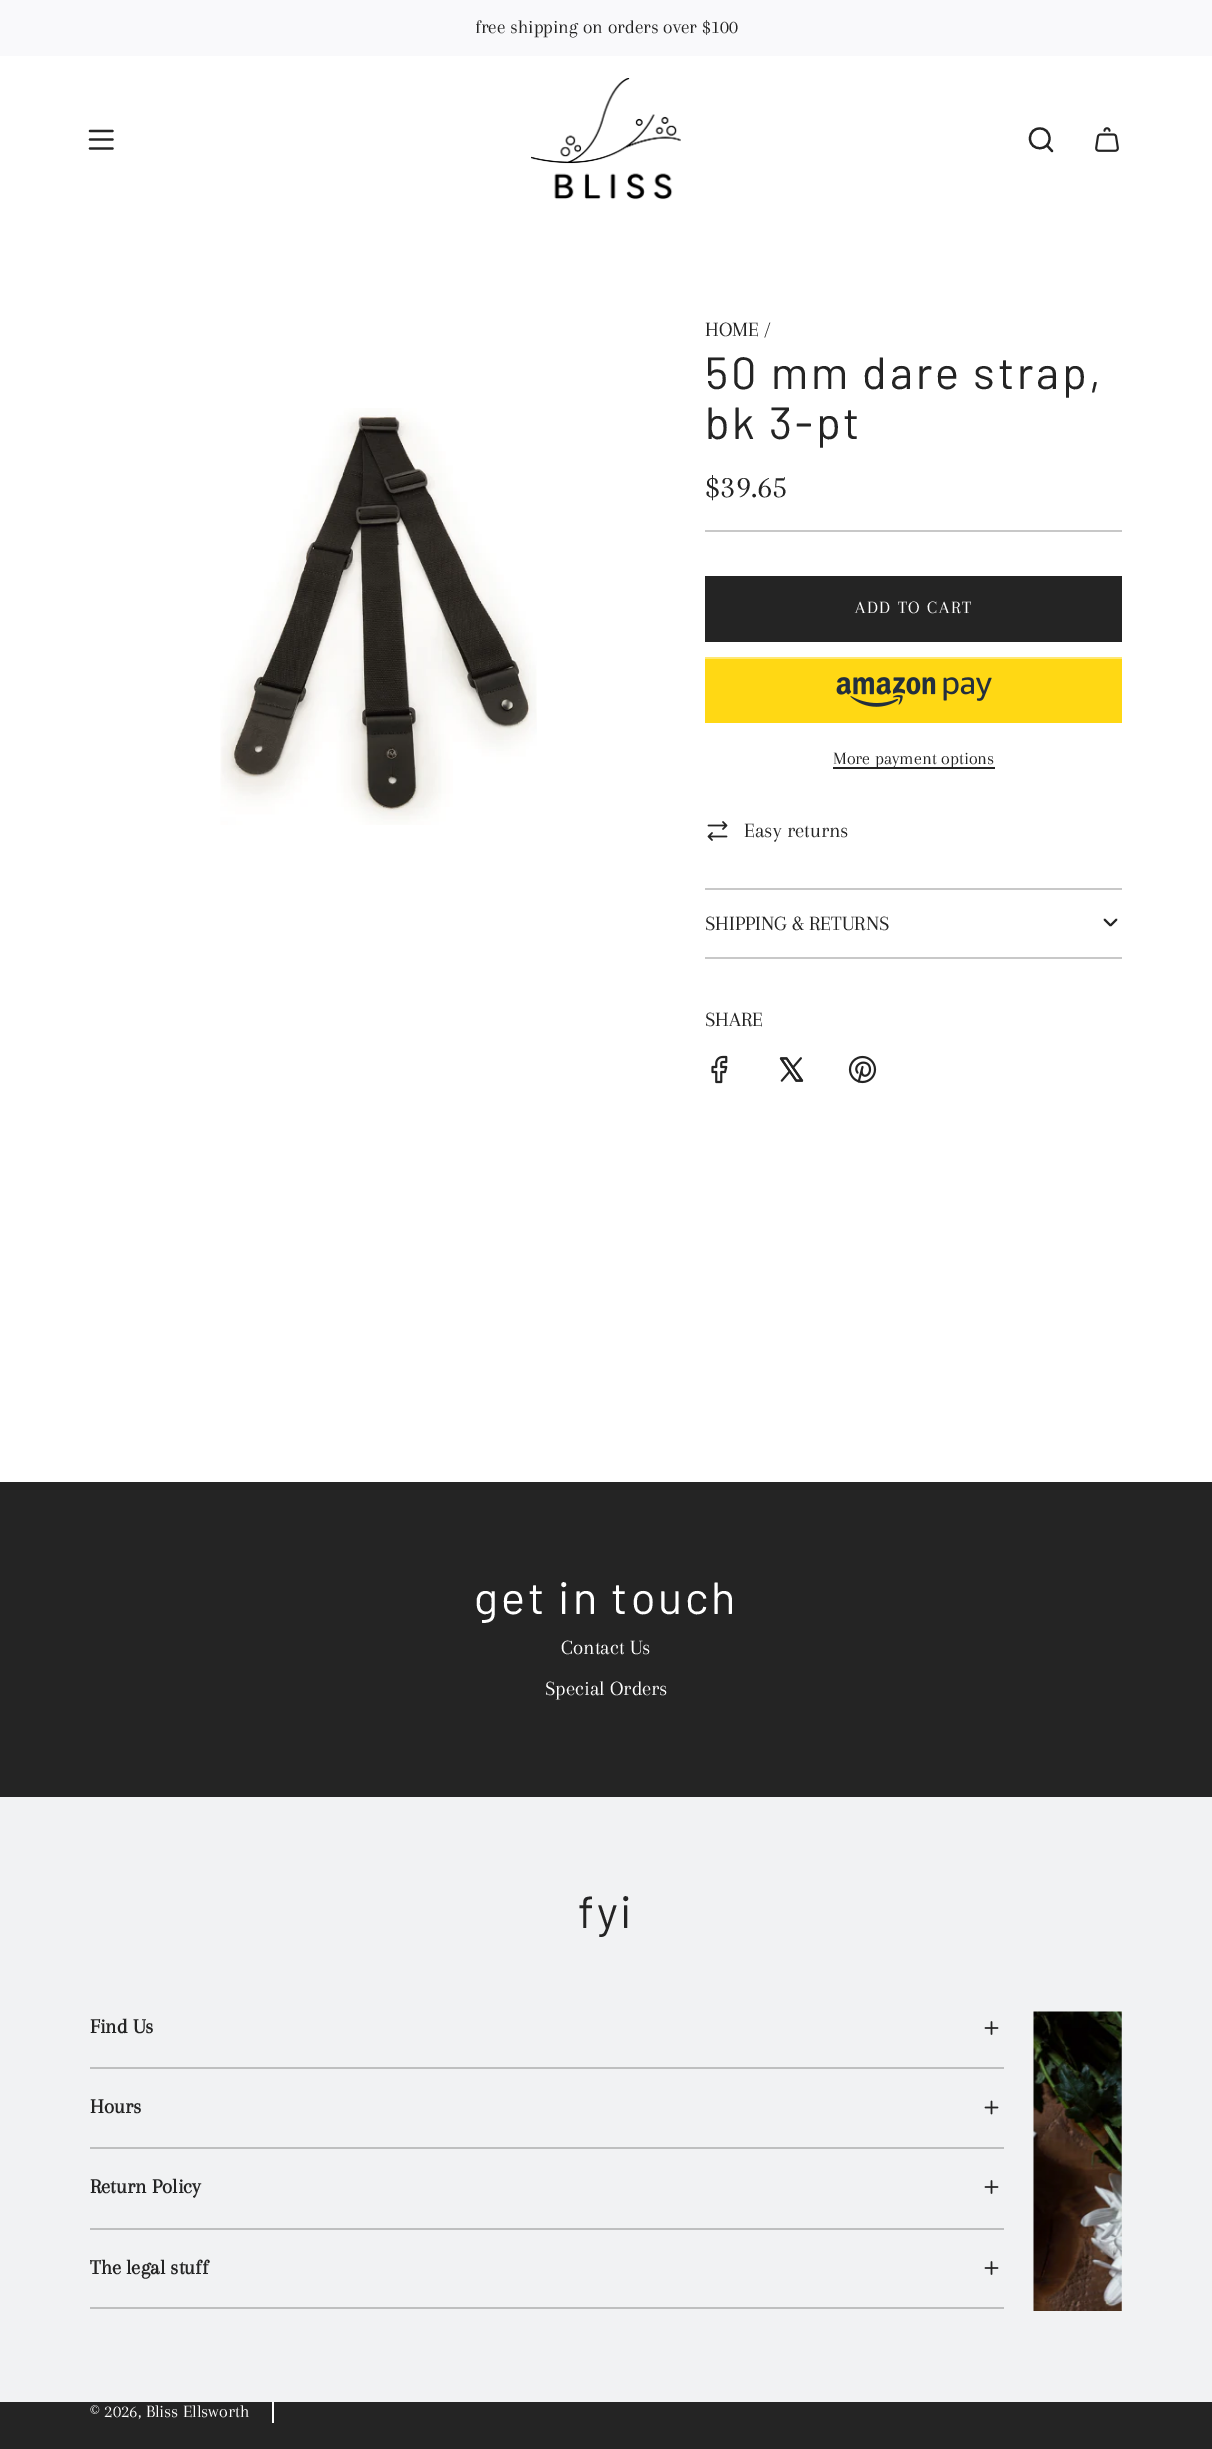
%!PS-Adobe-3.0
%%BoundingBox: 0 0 1212 2449
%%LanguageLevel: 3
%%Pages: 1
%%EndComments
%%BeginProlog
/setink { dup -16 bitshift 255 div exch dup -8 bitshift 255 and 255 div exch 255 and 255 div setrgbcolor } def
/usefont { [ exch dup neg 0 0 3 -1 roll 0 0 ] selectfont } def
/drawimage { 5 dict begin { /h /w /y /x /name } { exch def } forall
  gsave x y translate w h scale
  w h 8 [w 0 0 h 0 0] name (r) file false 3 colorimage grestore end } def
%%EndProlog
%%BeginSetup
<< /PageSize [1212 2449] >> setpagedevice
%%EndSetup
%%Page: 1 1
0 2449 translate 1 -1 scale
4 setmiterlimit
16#FFFFFF setink
0 0 1212 2449 rectfill
16#F9F9FB setink
0 0 1212 56 rectfill
/Arapey-Regular 19.5 usefont
16#242424 setink
475 33 moveto (free shipping on orders over $100) show
2.2 setlinewidth
1 setlinecap
1 setlinejoin
90 131 moveto 112.5 131 lineto 90 139.5 moveto 112.5 139.5 lineto 90 148.5 moveto 112.5 148.5 lineto stroke
(img1.raw) 531 78 150 122 drawimage
1047.5 146 moveto 1052 151 lineto 1030 138.5 moveto 1030 151.5 1049.5 151.5 1049.5 138.5 curveto 1049.5 125 1030 125 1030 138.5 curveto closepath stroke
(img2.raw) 1095 127 24 25 drawimage
(img3.raw) 220 408 317 417 drawimage
/Arapey-Regular 21 usefont
705 336 moveto (HOME /) show
/Barlow-Regular 45 usefont
705 389 moveto 2.75 0 (50 mm dare strap,) ashow
705 439 moveto 2.75 0 (bk 3-pt) ashow
/Arapey-Regular 33 usefont
705 497 moveto ($39.65) show
16#C8C8C8 setink
705 530 417 2 rectfill
16#242424 setink
705 576 417 66 rectfill
/Arapey-Regular 18 usefont
16#FFFFFF setink
855 613 moveto 1.5 0 (ADD TO CART) ashow
16#FFD814 setink
705 659 417 64 rectfill
16#FFE872 setink
705 657 417 2 rectfill
(img4.raw) 836 677 156 30 drawimage
16#242424 setink
833 767 162 2 rectfill
833 764 moveto (More payment options) show
(img5.raw) 707 821 21 20 drawimage
/Arapey-Regular 21 usefont
744 837 moveto (Easy returns) show
16#C8C8C8 setink
705 888 417 2 rectfill
705 957 417 2 rectfill
16#242424 setink
705 930 moveto (SHIPPING & RETURNS) show
1.8 setlinewidth
1104.5 919.5 moveto 1110.5 925.5 lineto 1116.5 919.5 lineto stroke
705 1026 moveto (SHARE) show
(img6.raw) 711 1055 17 29 drawimage
(img7.raw) 779 1057 25 25 drawimage
(img8.raw) 848 1055 29 29 drawimage
0 1482 1212 315 rectfill
/Barlow-Regular 45 usefont
16#FFFFFF setink
474 1614 moveto 2.75 0 (get in touch) ashow
/Arapey-Regular 21 usefont
561 1654 moveto (Contact Us) show
545 1695 moveto (Special Orders) show
16#F1F2F3 setink
0 1797 1212 605 rectfill
/Barlow-Regular 45 usefont
16#242424 setink
578 1928 moveto 2.75 0 (fyi) ashow
16#BEBFBF setink
90 2067 914 2 rectfill
/Arapey-Bold 21 usefont
16#242424 setink
90 2033 moveto (Find Us) show
(img9.raw) 984 2021 15 14 drawimage
16#BEBFBF setink
90 2147 914 2 rectfill
16#242424 setink
90 2113 moveto (Hours) show
(img10.raw) 984 2100 15 15 drawimage
16#BEBFBF setink
90 2228 914 2 rectfill
16#242424 setink
90 2193 moveto (Return Policy) show
(img9.raw) 984 2180 15 14 drawimage
16#BEBFBF setink
90 2307 914 2 rectfill
16#242424 setink
90 2274 moveto (The legal stuff) show
(img9.raw) 984 2261 15 14 drawimage
(img11.raw) 1033 2011 89 300 drawimage
0 2402 1212 47 rectfill
/Arapey-Regular 18 usefont
16#FFFFFF setink
90 2417 moveto (© 2026, Bliss Ellsworth) show
272 2402 2 21 rectfill
showpage
%%EOF
